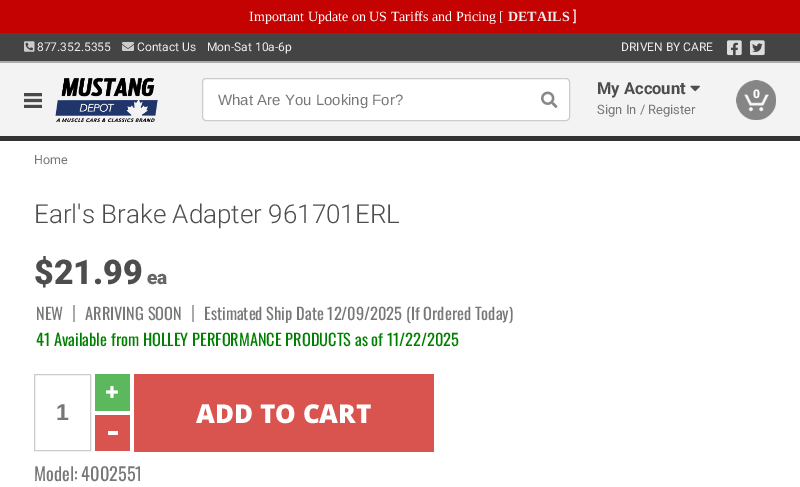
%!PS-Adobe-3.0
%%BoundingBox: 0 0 800 487
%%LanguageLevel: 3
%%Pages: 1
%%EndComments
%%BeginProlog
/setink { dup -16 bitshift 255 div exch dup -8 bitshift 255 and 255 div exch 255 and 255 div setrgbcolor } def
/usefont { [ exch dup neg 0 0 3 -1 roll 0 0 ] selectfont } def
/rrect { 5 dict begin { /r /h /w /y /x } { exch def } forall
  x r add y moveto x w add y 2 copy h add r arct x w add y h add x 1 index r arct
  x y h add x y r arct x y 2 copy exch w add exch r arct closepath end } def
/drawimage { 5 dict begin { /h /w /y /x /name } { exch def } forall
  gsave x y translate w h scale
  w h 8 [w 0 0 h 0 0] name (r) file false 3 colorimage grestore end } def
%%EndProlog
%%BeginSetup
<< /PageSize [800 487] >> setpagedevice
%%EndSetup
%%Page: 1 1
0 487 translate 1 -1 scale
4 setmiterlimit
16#F3F3F3 setink
0 0 800 487 rectfill
[
    [0 33 800 28 16#444444]
    [0 61 800 2 16#AAAAAA]
    [0 0 800 33 16#C40202]
] { aload pop setink rectfill } forall
/LiberationSerif-Regular 14 usefont
16#FFFFFF setink
249 21 moveto (Important Update on US Tariffs and Pricing) show
16#EEEEEE setink
499 21 moveto ([) show
/LiberationSerif-Bold 14 usefont
508 21 moveto (DETAILS) show
/Roboto-Regular 14 usefont
573 21 moveto (]) show
(img1.raw) 24 41 11 11 drawimage
/Roboto-Regular 12 usefont
37 51 moveto (877.352.5355) show
(img2.raw) 122 42 12 9 drawimage
[
    [(Contact Us) 137 51]
    [(Mon-Sat 10a-6p) 207 51]
    [(DRIVEN BY CARE) 621 51]
] { aload pop moveto show } forall
(img3.raw) 727 40 15 16 drawimage
(img4.raw) 750 40 15 16 drawimage
16#333333 setink
0 136 800 5 rectfill
(img5.raw) 24 93 18 15 drawimage
(img6.raw) 55 78 103 44 drawimage
16#FFFFFF setink
202.5 78.5 367 42 3.5 rrect gsave fill grestore
16#CCCCCC setink
stroke
/LiberationSans-Regular 15 usefont
16#777777 setink
218 105 moveto (What Are You Looking For?) show
(img7.raw) 541 91 17 17 drawimage
/Roboto-Bold 16.5 usefont
16#4D4D4D setink
597 94 moveto (My Account) show
(img8.raw) 690 85 10 7 drawimage
/Roboto-Regular 13 usefont
16#777777 setink
597 114 moveto (Sign In / Register) show
(img9.raw) 736 80 40 40 drawimage
/Roboto-Black 12 usefont
16#FFFFFF setink
753 98 moveto (0) show
0 141 800 346 rectfill
/Roboto-Regular 12.5 usefont
16#777777 setink
34 164 moveto (Home) show
/Roboto-Light 26 usefont
16#4D4D4D setink
34 223 moveto (Earl's Brake Adapter 961701ERL) show
/Roboto-Black 34 usefont
34 284 moveto ($21.99) show
/Roboto-Black 19 usefont
16#666666 setink
147 284 moveto (ea) show
/Oswald-Regular 16.4 usefont
16#777777 setink
36 320 moveto (NEW) show
16#AAAAAA setink
73 305 2 17 rectfill
16#777777 setink
85 320 moveto (ARRIVING SOON) show
16#AAAAAA setink
192 305 2 17 rectfill
16#777777 setink
204 320 moveto (Estimated Ship Date 12/09/2025 \(If Ordered Today\)) show
16#008000 setink
36 346 moveto (41 Available from HOLLEY PERFORMANCE PRODUCTS as of 11/22/2025) show
16#CCCCCC setink
34.5 374.5 56 76 rectstroke
/LiberationSans-Bold 23 usefont
16#777777 setink
56 420 moveto (1) show
16#5CB85C setink
95 374 35 37 rectfill
(img10.raw) 106 386 12 12 drawimage
[
    [95 415 35 36 16#D9534F]
    [108 431 10 4 16#FFFFFF]
    [134 374 300 78 16#D9534F]
] { aload pop setink rectfill } forall
/OpenSans-ExtraBold 26 usefont
16#FFFFFF setink
196 423 moveto (ADD TO CART) show
/Oswald-Regular 18.25 usefont
16#777777 setink
34 481 moveto (Model: 4002551) show
showpage
%%EOF
